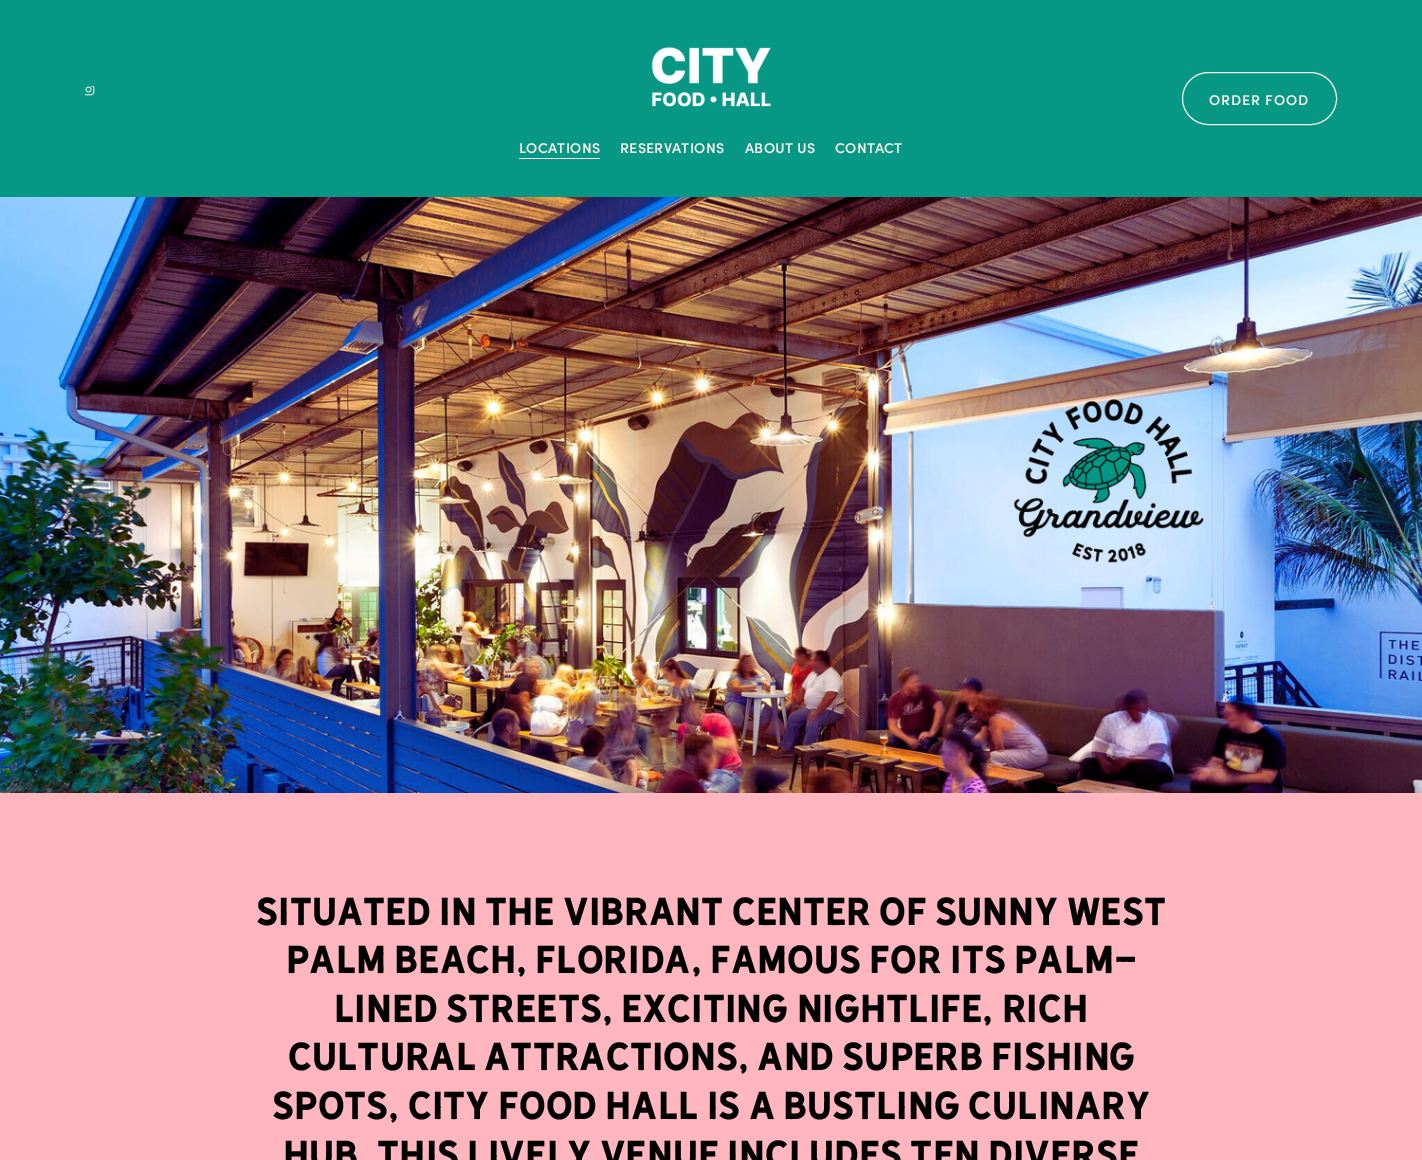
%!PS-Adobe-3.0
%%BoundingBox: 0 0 1422 1160
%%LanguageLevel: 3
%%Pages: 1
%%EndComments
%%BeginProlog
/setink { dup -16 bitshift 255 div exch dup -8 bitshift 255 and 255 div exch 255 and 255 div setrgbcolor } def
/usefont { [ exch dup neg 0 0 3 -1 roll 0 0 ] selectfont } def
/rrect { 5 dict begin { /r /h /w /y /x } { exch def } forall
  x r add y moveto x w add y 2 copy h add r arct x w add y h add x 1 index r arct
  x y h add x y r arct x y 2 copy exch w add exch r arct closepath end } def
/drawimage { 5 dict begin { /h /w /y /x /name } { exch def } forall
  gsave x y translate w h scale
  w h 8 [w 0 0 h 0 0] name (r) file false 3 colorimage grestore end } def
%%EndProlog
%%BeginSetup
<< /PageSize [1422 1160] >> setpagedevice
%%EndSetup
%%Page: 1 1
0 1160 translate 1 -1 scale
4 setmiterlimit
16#FFFFFF setink
0 0 1422 1160 rectfill
16#079785 setink
0 0 1422 197 rectfill
(img1.raw) 85 86 10 10 drawimage
16#F8F2E6 setink
1182.5 72.5 154 52 26 rrect stroke
/Sofia-SemiBold 14.25 usefont
1209 105 moveto 0.9 0 (ORDER FOOD) ashow
(img2.raw) 651 47 120 60 drawimage
519 158 81 1 rectfill
519 153 moveto 0.25 0 (LOCATIONS) ashow
620 153 moveto 0.25 0 (RESERVATIONS) ashow
745 153 moveto 0.25 0 (ABOUT US) ashow
835 153 moveto 0.25 0 (CONTACT) ashow
(img3.raw) 0 197 1422 596 drawimage
16#FFB6BF setink
0 793 1422 367 rectfill
/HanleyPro-Regular 36.5 usefont
16#000000 setink
[
    [(Situated in the vibrant center of sunny West) 256 925]
    [(Palm Beach, Florida, famous for its palm-) 286 973]
    [(lined streets, exciting nightlife, rich) 334 1022]
    [(cultural attractions, and superb fishing) 288 1070]
    [(spots, City Food Hall is a bustling culinary) 272 1119]
    [(hub. This lively venue includes ten diverse) 283 1168]
] { aload pop moveto show } forall
showpage
%%EOF
